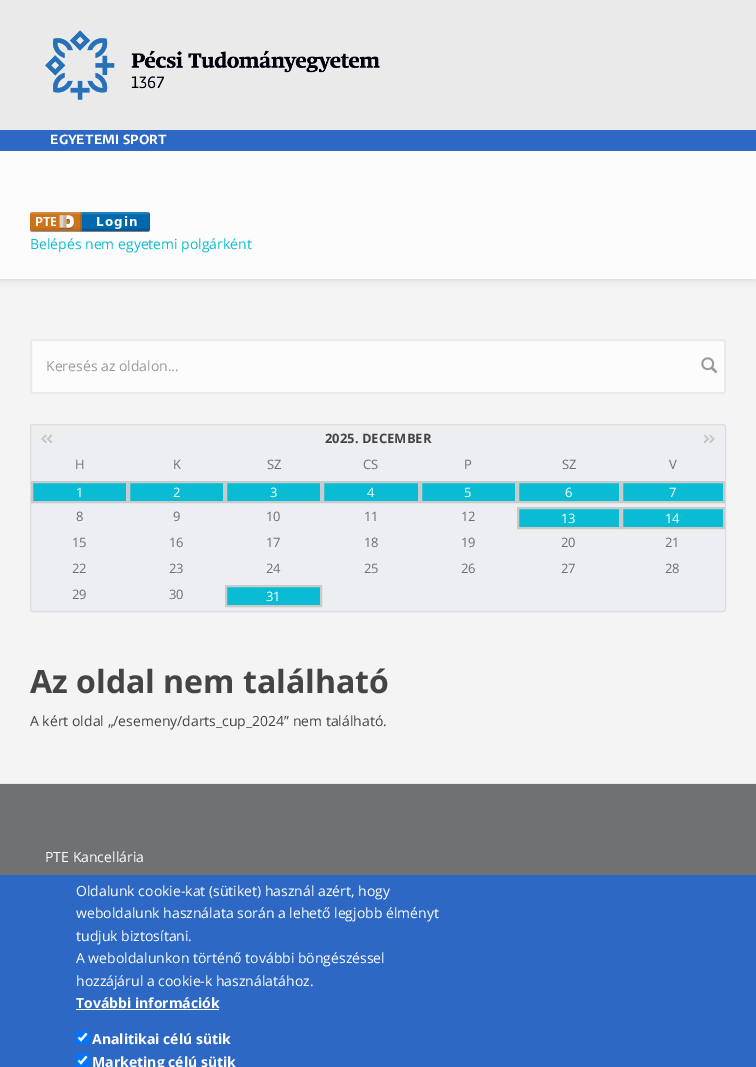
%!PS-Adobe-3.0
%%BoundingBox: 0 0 756 1067
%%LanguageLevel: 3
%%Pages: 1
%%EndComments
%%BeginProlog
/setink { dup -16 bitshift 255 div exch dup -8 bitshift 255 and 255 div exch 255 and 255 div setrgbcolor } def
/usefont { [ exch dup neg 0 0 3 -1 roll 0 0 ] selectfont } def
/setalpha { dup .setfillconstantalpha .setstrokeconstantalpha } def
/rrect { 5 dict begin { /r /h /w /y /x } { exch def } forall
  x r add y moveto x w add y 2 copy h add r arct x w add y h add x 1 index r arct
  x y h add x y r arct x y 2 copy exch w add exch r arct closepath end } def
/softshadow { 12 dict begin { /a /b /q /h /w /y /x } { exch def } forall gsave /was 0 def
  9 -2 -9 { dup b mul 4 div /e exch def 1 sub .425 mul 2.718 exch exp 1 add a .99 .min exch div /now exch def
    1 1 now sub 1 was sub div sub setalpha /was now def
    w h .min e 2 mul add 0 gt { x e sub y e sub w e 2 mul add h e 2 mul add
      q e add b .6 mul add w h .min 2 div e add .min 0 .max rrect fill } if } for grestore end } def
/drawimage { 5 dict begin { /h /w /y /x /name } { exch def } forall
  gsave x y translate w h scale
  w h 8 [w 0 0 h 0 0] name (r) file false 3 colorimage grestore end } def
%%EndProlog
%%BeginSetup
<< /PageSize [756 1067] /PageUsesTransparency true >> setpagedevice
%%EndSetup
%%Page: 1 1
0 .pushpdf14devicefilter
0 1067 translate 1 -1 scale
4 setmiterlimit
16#2D68C4 setink
0 0 756 1067 rectfill
16#EAEAEA setink
0 0 756 130 rectfill
(img1.raw) 45 30 335 70 drawimage
/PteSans-SemiBold 14 usefont
16#FFFFFF setink
50 144 moveto (EGYETEMI SPORT) show
16#F2F2F2 setink
0 279 756 10 rectfill
16#000000 setink
0 153 756 128 0 2 0.07 softshadow
16#FCFCFC setink
0 151 756 128 rectfill
(img2.raw) 30 212 120 20 drawimage
/OpenSans-Regular 14 usefont
16#0ABCD3 setink
30 249 moveto (Belépés nem egyetemi polgárként) show
16#F4F4F4 setink
0 289 756 494 rectfill
16#FCFCFC setink
31 340 694 53 2 rrect gsave fill grestore
16#EAEAEA setink
2 setlinewidth
stroke
16#999999 setink
46 371 moveto (Keresés az oldalon...) show
(img3.raw) 701 357 17 17 drawimage
16#EDEEF1 setink
30.5 424.5 695 187 2.5 rrect gsave fill grestore
16#DDDDE0 setink
1 setlinewidth
stroke
(img4.raw) 41 434 12 9 drawimage
/OpenSans-Bold 13 usefont
16#444444 setink
325 443 moveto (2025. DECEMBER) show
(img5.raw) 703 434 12 9 drawimage
/OpenSans-Regular 13 usefont
16#6D6E72 setink
[
    [(H) 75 469]
    [(K) 173 469]
    [(SZ) 267 469]
    [(CS) 363 469]
    [(P) 464 469]
    [(SZ) 562 469]
    [(V) 669 469]
] { aload pop moveto show } forall
16#0ABCD3 setink
33 483 93 18 rectfill
16#C8CBCC setink
31.5 481.5 96 21 rectstroke
32.5 482.5 94 19 rectstroke
16#FFFFFF setink
76 497 moveto (1) show
16#0ABCD3 setink
130 483 93 18 rectfill
16#C8CBCC setink
128.5 481.5 96 21 rectstroke
129.5 482.5 94 19 rectstroke
16#FFFFFF setink
173 497 moveto (2) show
16#0ABCD3 setink
227 483 93 18 rectfill
16#C8CBCC setink
225.5 481.5 96 21 rectstroke
226.5 482.5 94 19 rectstroke
16#FFFFFF setink
270 497 moveto (3) show
16#0ABCD3 setink
324 483 94 18 rectfill
16#C8CBCC setink
322.5 481.5 97 21 rectstroke
323.5 482.5 95 19 rectstroke
16#FFFFFF setink
367 497 moveto (4) show
16#0ABCD3 setink
422 483 93 18 rectfill
16#C8CBCC setink
420.5 481.5 96 21 rectstroke
421.5 482.5 94 19 rectstroke
16#FFFFFF setink
464 497 moveto (5) show
16#0ABCD3 setink
519 483 100 18 rectfill
16#C8CBCC setink
517.5 481.5 103 21 rectstroke
518.5 482.5 101 19 rectstroke
16#FFFFFF setink
565 497 moveto (6) show
16#0ABCD3 setink
623 483 100 18 rectfill
16#C8CBCC setink
621.5 481.5 103 21 rectstroke
622.5 482.5 101 19 rectstroke
16#FFFFFF setink
669 497 moveto (7) show
16#6D6E72 setink
[
    [(8) 76 521]
    [(9) 173 521]
    [(10) 266 521]
    [(11) 364 521]
    [(12) 461 521]
] { aload pop moveto show } forall
16#0ABCD3 setink
519 509 100 18 rectfill
16#C8CBCC setink
517.5 507.5 103 21 rectstroke
518.5 508.5 101 19 rectstroke
16#FFFFFF setink
561 523 moveto (13) show
16#0ABCD3 setink
623 509 100 18 rectfill
16#C8CBCC setink
621.5 507.5 103 21 rectstroke
622.5 508.5 101 19 rectstroke
16#FFFFFF setink
665 523 moveto (14) show
16#6D6E72 setink
[
    [(15) 72 547]
    [(16) 169 547]
    [(17) 266 547]
    [(18) 364 547]
    [(19) 461 547]
    [(20) 561 547]
    [(21) 665 547]
    [(22) 72 573]
    [(23) 169 573]
    [(24) 266 573]
    [(25) 364 573]
    [(26) 461 573]
    [(27) 561 573]
    [(28) 665 573]
    [(29) 72 599]
    [(30) 169 599]
] { aload pop moveto show } forall
16#0ABCD3 setink
227 587 93 18 rectfill
16#C8CBCC setink
225.5 585.5 96 21 rectstroke
226.5 586.5 94 19 rectstroke
16#FFFFFF setink
266 601 moveto (31) show
/OpenSans-Bold 32 usefont
16#444444 setink
30 693 moveto (Az oldal nem található) show
/OpenSans-Regular 14 usefont
30 726 moveto (A kért oldal „/esemeny/darts_cup_2024” nem található.) show
16#6F7172 setink
0 784 756 91 rectfill
16#EAEAEA setink
0 783 756 1 rectfill
16#FFFFFF setink
[
    [(PTE Kancellária) 45 862]
    [(Oldalunk cookie-kat \(sütiket\) használ azért, hogy) 76 896]
    [(weboldalunk használata során a lehető legjobb élményt) 76 918]
    [(tudjuk biztosítani.) 76 941]
    [(A weboldalunkon történő további böngészéssel) 76 963]
    [(hozzájárul a cookie-k használatához.) 76 986]
] { aload pop moveto show } forall
/OpenSans-Bold 14 usefont
76 1008 moveto (További információk) show
76 1009 143 1 rectfill
16#0075FF setink
76 1031 13 13 2 rrect fill
16#FFFFFF setink
2.1 setlinewidth
78.5 1037.5 moveto 81 1040 lineto 86.5 1033.5 lineto stroke
92 1044 moveto (Analitikai célú sütik) show
16#0075FF setink
76 1054 13 13 2 rrect fill
16#FFFFFF setink
78.5 1060.5 moveto 81 1063 lineto 86.5 1056.5 lineto stroke
92 1067 moveto (Marketing célú sütik) show
.poppdf14devicefilter showpage
%%EOF
